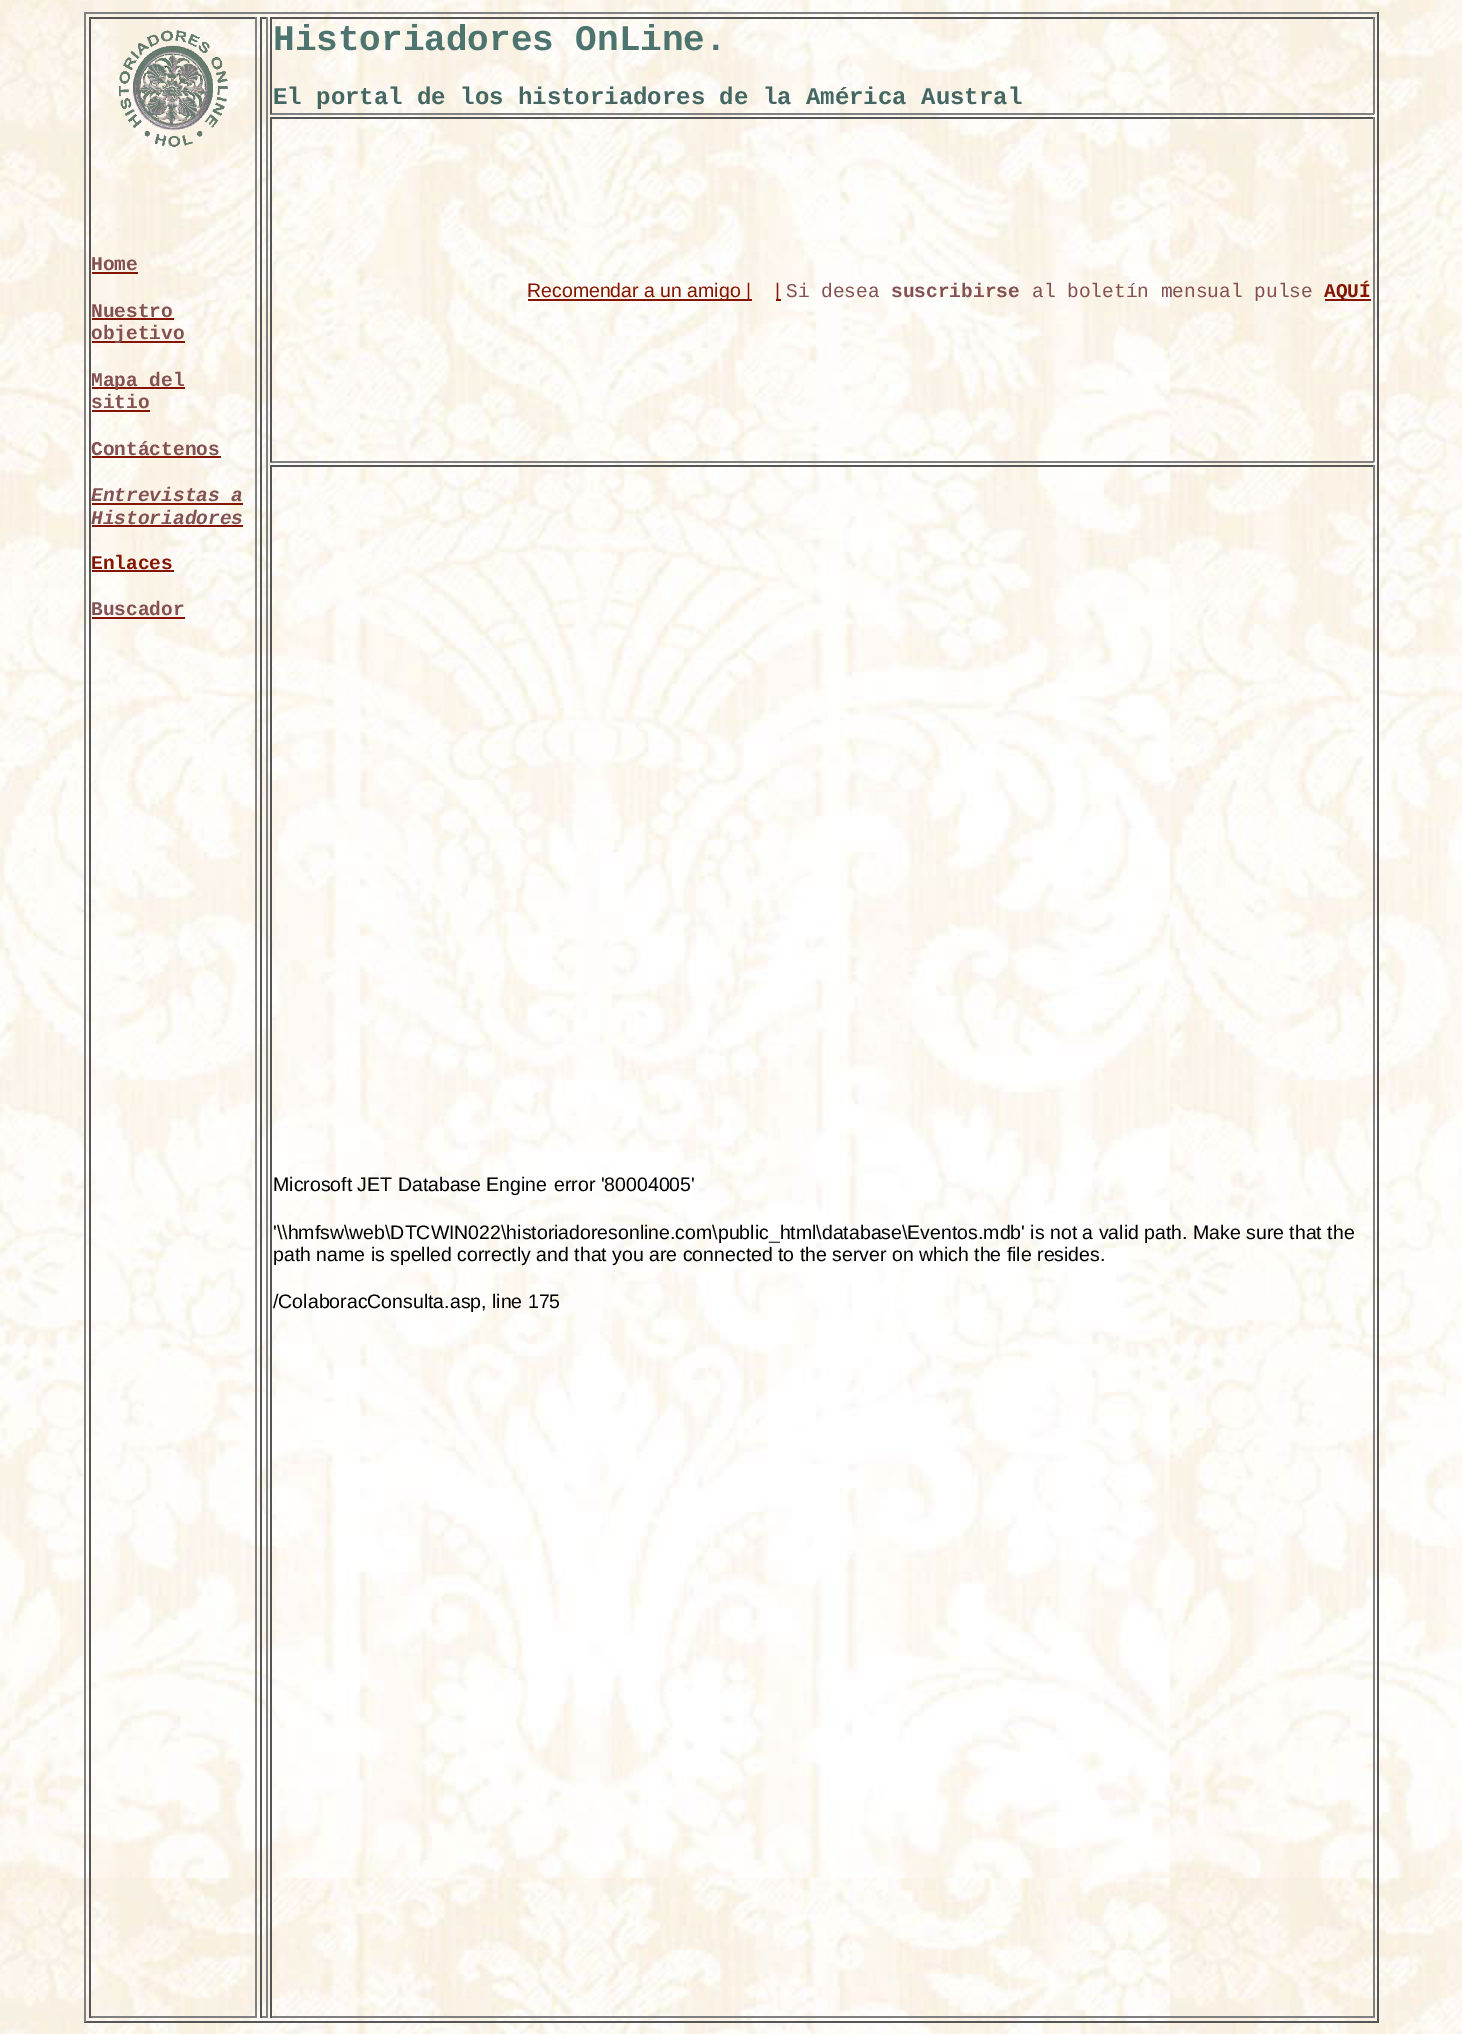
%!PS-Adobe-3.0
%%BoundingBox: 0 0 1462 2034
%%LanguageLevel: 3
%%Pages: 1
%%EndComments
%%BeginProlog
/setink { dup -16 bitshift 255 div exch dup -8 bitshift 255 and 255 div exch 255 and 255 div setrgbcolor } def
/usefont { [ exch dup neg 0 0 3 -1 roll 0 0 ] selectfont } def
/drawimage { 5 dict begin { /h /w /y /x /name } { exch def } forall
  gsave x y translate w h scale
  w h 8 [w 0 0 h 0 0] name (r) file false 3 colorimage grestore end } def
%%EndProlog
%%BeginSetup
<< /PageSize [1462 2034] >> setpagedevice
%%EndSetup
%%Page: 1 1
0 2034 translate 1 -1 scale
4 setmiterlimit
16#FFFFFF setink
0 0 1462 2034 rectfill
(img1.raw) 0 0 1462 2034 drawimage
[
    [84 12 1295 2 16#808080]
    [1377 12 2 2010 16#555555]
    [84 2021 1295 2 16#555555]
    [84 12 2 2010 16#808080]
    [260 17 7 2 16#555555]
    [266 17 2 2001 16#808080]
    [260 2016 7 2 16#808080]
    [260 17 2 2001 16#555555]
    [270 17 1104 2 16#555555]
    [1373 17 2 97 16#808080]
    [270 113 1104 2 16#808080]
    [270 17 2 97 16#555555]
] { aload pop setink rectfill } forall
/LiberationMono-Bold 36 usefont
16#4E746F setink
273 50 moveto (Historiadores OnLine.) show
/LiberationMono-Bold 24 usefont
16#456763 setink
273 104 moveto (El portal de los historiadores de la América Austral) show
[
    [89 17 168 2 16#555555]
    [255 17 2 2001 16#808080]
    [89 2016 168 2 16#808080]
    [89 17 2 2001 16#555555]
] { aload pop setink rectfill } forall
(img2.raw) 119 30 109 117 drawimage
/LiberationMono-Bold 19.5 usefont
16#845152 setink
91 270 moveto (Home) show
16#841500 setink
92 272 46 2 rectfill
16#845152 setink
91 317 moveto (Nuestro) show
16#841500 setink
92 318 82 2 rectfill
92 341 93 2 rectfill
16#845152 setink
91 339 moveto (objetivo) show
16#841500 setink
92 387 93 2 rectfill
16#845152 setink
91 386 moveto (Mapa del) show
91 408 moveto (sitio) show
16#841500 setink
92 410 58 2 rectfill
16#845152 setink
91 455 moveto (Contáctenos) show
16#841500 setink
92 456 129 2 rectfill
/LiberationMono-BoldItalic 19.5 usefont
16#845152 setink
91 501 moveto (Entrevistas a) show
16#841500 setink
92 503 151 2 rectfill
16#845152 setink
91 524 moveto (Historiadores) show
16#841500 setink
92 525 151 2 rectfill
/LiberationMono-Bold 19.5 usefont
91 569 moveto (Enlaces) show
92 570 82 2 rectfill
16#845152 setink
91 615 moveto (Buscador) show
[
    [92 617 93 2 16#841500]
    [270 117 1104 2 16#555555]
    [1373 117 2 345 16#808080]
    [270 461 1104 2 16#808080]
    [270 117 2 345 16#555555]
    [528 299 224 2 16#841500]
] { aload pop setink rectfill } forall
/LiberationSans-Regular 19.5 usefont
527 297 moveto (Recomendar a un amigo |) show
776 299 5 2 rectfill
775 297 moveto (|) show
/LiberationMono-Regular 19.5 usefont
16#845152 setink
786 297 moveto (Si desea) show
/LiberationMono-Bold 19.5 usefont
891 297 moveto (suscribirse) show
/LiberationMono-Regular 19.5 usefont
1032 297 moveto (al boletín mensual pulse) show
16#841500 setink
1325 299 46 2 rectfill
/LiberationMono-Bold 19.5 usefont
1324 297 moveto (AQUÍ) show
[
    [270 465 1104 2 16#555555]
    [1373 465 2 1553 16#808080]
    [270 2016 1104 2 16#808080]
    [270 465 2 1553 16#555555]
] { aload pop setink rectfill } forall
/LiberationSans-Regular 19.5 usefont
16#000000 setink
[
    [(Microsoft JET Database Engine) 273 1191]
    [(error '80004005') 554 1191]
    [('\\\\hmfsw\\web\\DTCWIN022\\historiadoresonline.com\\public_html\\database\\Eventos.mdb' is not a valid path. Make sure that the) 273 1239]
    [(path name is spelled correctly and that you are connected to the server on which the file resides.) 273 1261]
    [(/ColaboracConsulta.asp, line 175) 273 1308]
] { aload pop moveto show } forall
showpage
%%EOF
